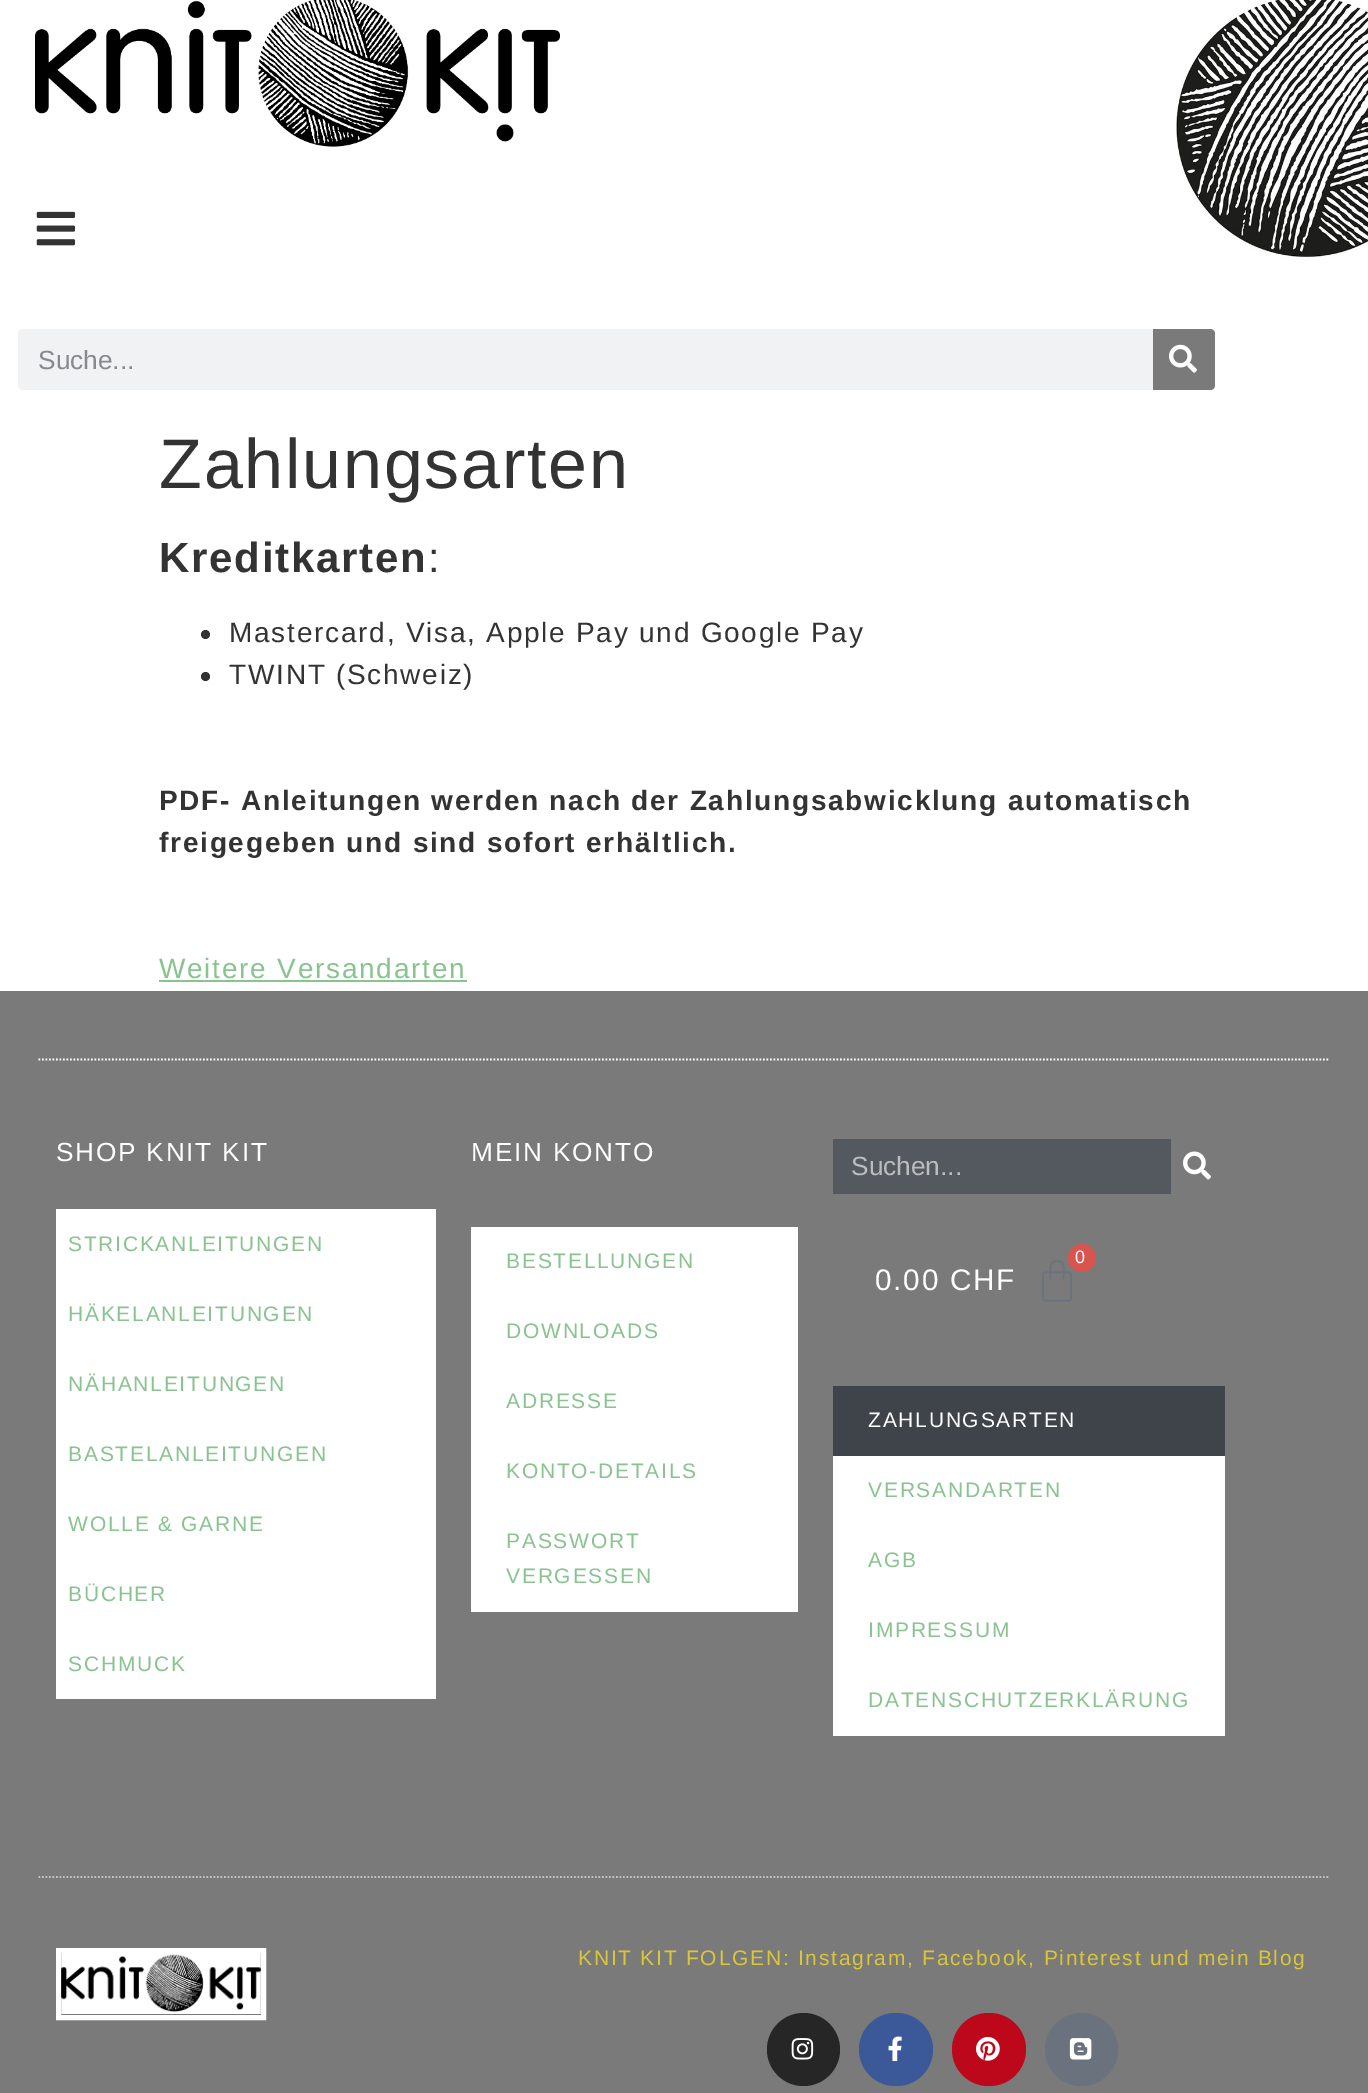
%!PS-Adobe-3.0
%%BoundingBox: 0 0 1368 2093
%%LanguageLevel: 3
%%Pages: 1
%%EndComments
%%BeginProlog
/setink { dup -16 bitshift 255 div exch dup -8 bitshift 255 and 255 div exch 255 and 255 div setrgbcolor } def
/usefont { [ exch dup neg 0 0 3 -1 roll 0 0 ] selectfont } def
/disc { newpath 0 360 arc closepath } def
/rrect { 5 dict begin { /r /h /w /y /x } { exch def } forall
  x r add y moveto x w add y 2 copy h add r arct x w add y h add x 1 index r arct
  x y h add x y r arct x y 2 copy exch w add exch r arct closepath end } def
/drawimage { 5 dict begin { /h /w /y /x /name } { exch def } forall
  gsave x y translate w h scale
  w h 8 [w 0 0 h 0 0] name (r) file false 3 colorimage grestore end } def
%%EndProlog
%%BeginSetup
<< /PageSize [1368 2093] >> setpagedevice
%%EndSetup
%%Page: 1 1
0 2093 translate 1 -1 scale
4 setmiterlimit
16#FFFFFF setink
0 0 1368 2093 rectfill
(img1.raw) 35 0 525 147 drawimage
(img2.raw) 36 211 40 35 drawimage
(img3.raw) 1176 0 192 259 drawimage
16#F1F2F3 setink
18 329 1197 61 5 rrect fill
/LiberationSans-Regular 26.25 usefont
16#868A8E setink
38 369 moveto (Suche...) show
16#7A7A7A setink
1153 329 moveto 1210 329 lineto 1213 329 1215 331 1215 334 curveto 1215 385 lineto 1215 388 1213 390 1210 390 curveto 1153 390 lineto closepath fill
(img4.raw) 1169 344 28 29 drawimage
/LiberationSans-Regular 70 usefont
16#333333 setink
159 488 moveto 1.75 0 (Zahlungsarten) ashow
/LiberationSans-Bold 42 usefont
159 572 moveto 1.75 0 (Kreditkarten) ashow
/LiberationSans-Regular 42 usefont
428 572 moveto 1.75 0 (:) ashow
205.5 634.5 4.5 disc fill
/LiberationSans-Regular 28 usefont
229 642 moveto 1.75 0 (Mastercard, Visa, Apple Pay und Google Pay) ashow
205.5 676.5 4.5 disc fill
229 684 moveto 1.75 0 (TWINT \(Schweiz\)) ashow
/LiberationSans-Bold 28 usefont
159 810 moveto 1.75 0 (PDF- Anleitungen werden nach der Zahlungsabwicklung automatisch) ashow
159 852 moveto 1.75 0 (freigegeben und sind sofort erhältlich.) ashow
/LiberationSans-Regular 28 usefont
16#88C390 setink
159 978 moveto 1.75 0 (Weitere Versandarten) ashow
159 980 308 2 rectfill
16#7A7A7A setink
0 991 1368 1102 rectfill
16#FFFFFF setink
1.8 setlinewidth
[1.75 1.75] 0 setdash
38.5 1059.5 moveto 1330 1059.5 lineto stroke
/LiberationSans-Regular 26.25 usefont
56 1161 moveto 1.75 0 (SHOP KNIT KIT) ashow
56 1209 380 490 rectfill
/LiberationSans-Regular 21 usefont
16#88C390 setink
68 1251 moveto 1.75 0 (STRICKANLEITUNGEN) ashow
68 1321 moveto 1.75 0 (HÄKELANLEITUNGEN) ashow
68 1391 moveto 1.75 0 (NÄHANLEITUNGEN) ashow
68 1461 moveto 1.75 0 (BASTELANLEITUNGEN) ashow
68 1531 moveto 1.75 0 (WOLLE & GARNE) ashow
68 1601 moveto 1.75 0 (BÜCHER) ashow
68 1671 moveto 1.75 0 (SCHMUCK) ashow
/LiberationSans-Regular 26.25 usefont
16#FFFFFF setink
471 1161 moveto 1.75 0 (MEIN KONTO) ashow
471 1227 327 385 rectfill
/LiberationSans-Regular 21 usefont
16#88C390 setink
506 1268 moveto 1.75 0 (BESTELLUNGEN) ashow
506 1338 moveto 1.75 0 (DOWNLOADS) ashow
506 1408 moveto 1.75 0 (ADRESSE) ashow
506 1478 moveto 1.75 0 (KONTO-DETAILS) ashow
506 1548 moveto 1.75 0 (PASSWORT) ashow
506 1583 moveto 1.75 0 (VERGESSEN) ashow
16#54595F setink
833 1139 338 55 rectfill
/LiberationSans-Regular 26.25 usefont
16#BBBDBF setink
851 1175 moveto (Suchen...) show
(img5.raw) 1183 1151 28 29 drawimage
(img6.raw) 1042 1260 30 42 drawimage
16#D9534F setink
1082 1258 14 disc fill
/LiberationSans-Regular 18 usefont
16#FFFFFF setink
1075 1263 moveto 1.75 0 (0) ashow
/LiberationSans-Regular 29.75 usefont
875 1290 moveto 1.75 0 (0.00 CHF) ashow
833 1456 392 280 rectfill
16#3F444B setink
833 1386 392 70 rectfill
/LiberationSans-Regular 21 usefont
16#FFFFFF setink
868 1427 moveto 1.75 0 (ZAHLUNGSARTEN) ashow
16#88C390 setink
868 1497 moveto 1.75 0 (VERSANDARTEN) ashow
868 1567 moveto 1.75 0 (AGB) ashow
868 1637 moveto 1.75 0 (IMPRESSUM) ashow
868 1707 moveto 1.75 0 (DATENSCHUTZERKLÄRUNG) ashow
16#C4C4C4 setink
38.5 1877 moveto 1330 1877 lineto stroke
16#FFFFFF setink
5 setlinewidth
[] 0 setdash
58.5 1950.5 205 67 rectstroke
(img7.raw) 61 1953 200 61 drawimage
16#DAC739 setink
578 1965 moveto 1.75 0 (KNIT KIT FOLGEN: Instagram, Facebook, Pinterest und mein Blog) ashow
16#262626 setink
803.5 2049.5 36.5 disc fill
(img8.raw) 791 2038 23 22 drawimage
16#3B5998 setink
859 2013 74 73 36.5 rrect fill
(img9.raw) 888 2036 14 26 drawimage
16#BD081C setink
952 2013 74 73 36.5 rrect fill
(img10.raw) 976 2036 24 25 drawimage
16#69727D setink
1081.5 2049.5 36.5 disc fill
(img11.raw) 1069 2038 23 22 drawimage
showpage
%%EOF
